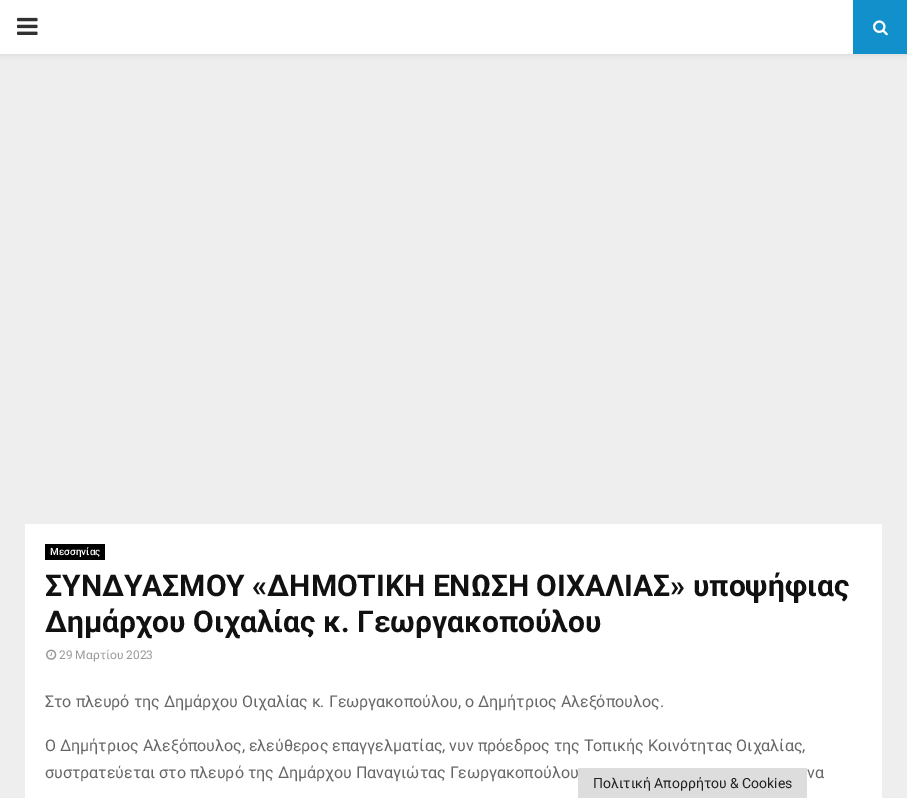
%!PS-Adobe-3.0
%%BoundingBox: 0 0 907 798
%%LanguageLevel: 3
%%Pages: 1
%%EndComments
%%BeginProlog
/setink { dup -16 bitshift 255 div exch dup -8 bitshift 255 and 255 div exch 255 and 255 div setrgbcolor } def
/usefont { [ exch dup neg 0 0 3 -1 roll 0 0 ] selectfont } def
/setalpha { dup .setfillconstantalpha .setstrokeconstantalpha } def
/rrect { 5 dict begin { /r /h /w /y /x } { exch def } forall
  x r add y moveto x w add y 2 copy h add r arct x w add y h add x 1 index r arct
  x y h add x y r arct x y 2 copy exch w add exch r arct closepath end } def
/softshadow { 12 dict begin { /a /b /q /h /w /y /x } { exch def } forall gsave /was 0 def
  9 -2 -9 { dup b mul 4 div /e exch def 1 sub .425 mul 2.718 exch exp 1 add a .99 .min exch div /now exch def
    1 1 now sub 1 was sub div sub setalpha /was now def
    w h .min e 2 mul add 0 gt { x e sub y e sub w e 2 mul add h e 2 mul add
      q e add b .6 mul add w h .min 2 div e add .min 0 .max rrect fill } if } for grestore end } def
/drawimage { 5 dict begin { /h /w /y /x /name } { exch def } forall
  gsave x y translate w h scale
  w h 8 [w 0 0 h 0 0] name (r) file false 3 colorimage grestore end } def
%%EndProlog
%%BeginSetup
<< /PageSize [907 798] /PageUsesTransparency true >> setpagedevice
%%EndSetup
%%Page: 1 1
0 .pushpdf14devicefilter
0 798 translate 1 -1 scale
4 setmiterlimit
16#EEEEEE setink
0 0 907 798 rectfill
16#BEBEBE setink
0 1 907 54 0 2.5 0.46 softshadow
16#FFFFFF setink
0 0 853 54 rectfill
(img1.raw) 17 17 21 18 drawimage
16#1190CB setink
853 0 54 54 rectfill
(img2.raw) 873 20 15 16 drawimage
16#FFFFFF setink
25 524 857 274 rectfill
16#000000 setink
45 544 60 16 rectfill
/Roboto-Medium 10 usefont
16#FFFFFF setink
50 555 moveto (Μεσσηνίας) show
/Roboto-Bold 30 usefont
16#111111 setink
45 596 moveto (ΣΥΝΔΥΑΣΜΟΥ «ΔΗΜΟΤΙΚΗ ΕΝΩΣΗ ΟΙΧΑΛΙΑΣ» υποψήφιας) show
45 632 moveto (Δημάρχου Οιχαλίας κ. Γεωργακοπούλου) show
(img3.raw) 46 649 11 11 drawimage
/Roboto-Regular 12 usefont
16#999999 setink
59 659 moveto (29 Μαρτίου 2023) show
/Roboto-Regular 16 usefont
16#666666 setink
[
    [(Στο πλευρό της Δημάρχου Οιχαλίας κ. Γεωργακοπούλου, ο Δημήτριος Αλεξόπουλος.) 45 707]
    [(Ο Δημήτριος Αλεξόπουλος, ελεύθερος επαγγελματίας, νυν πρόεδρος της Τοπικής Κοινότητας Οιχαλίας,) 45 751]
    [(συστρατεύεται στο πλευρό της Δημάρχου Παναγιώτας Γεωργακοπούλου) 45 778]
    [(να) 807 778]
] { aload pop moveto show } forall
16#DDDDDD setink
578 768 229 30 rectfill
/Roboto-Regular 14 usefont
16#212121 setink
593 788 moveto (Πολιτική Απορρήτου & Cookies) show
.poppdf14devicefilter showpage
%%EOF
